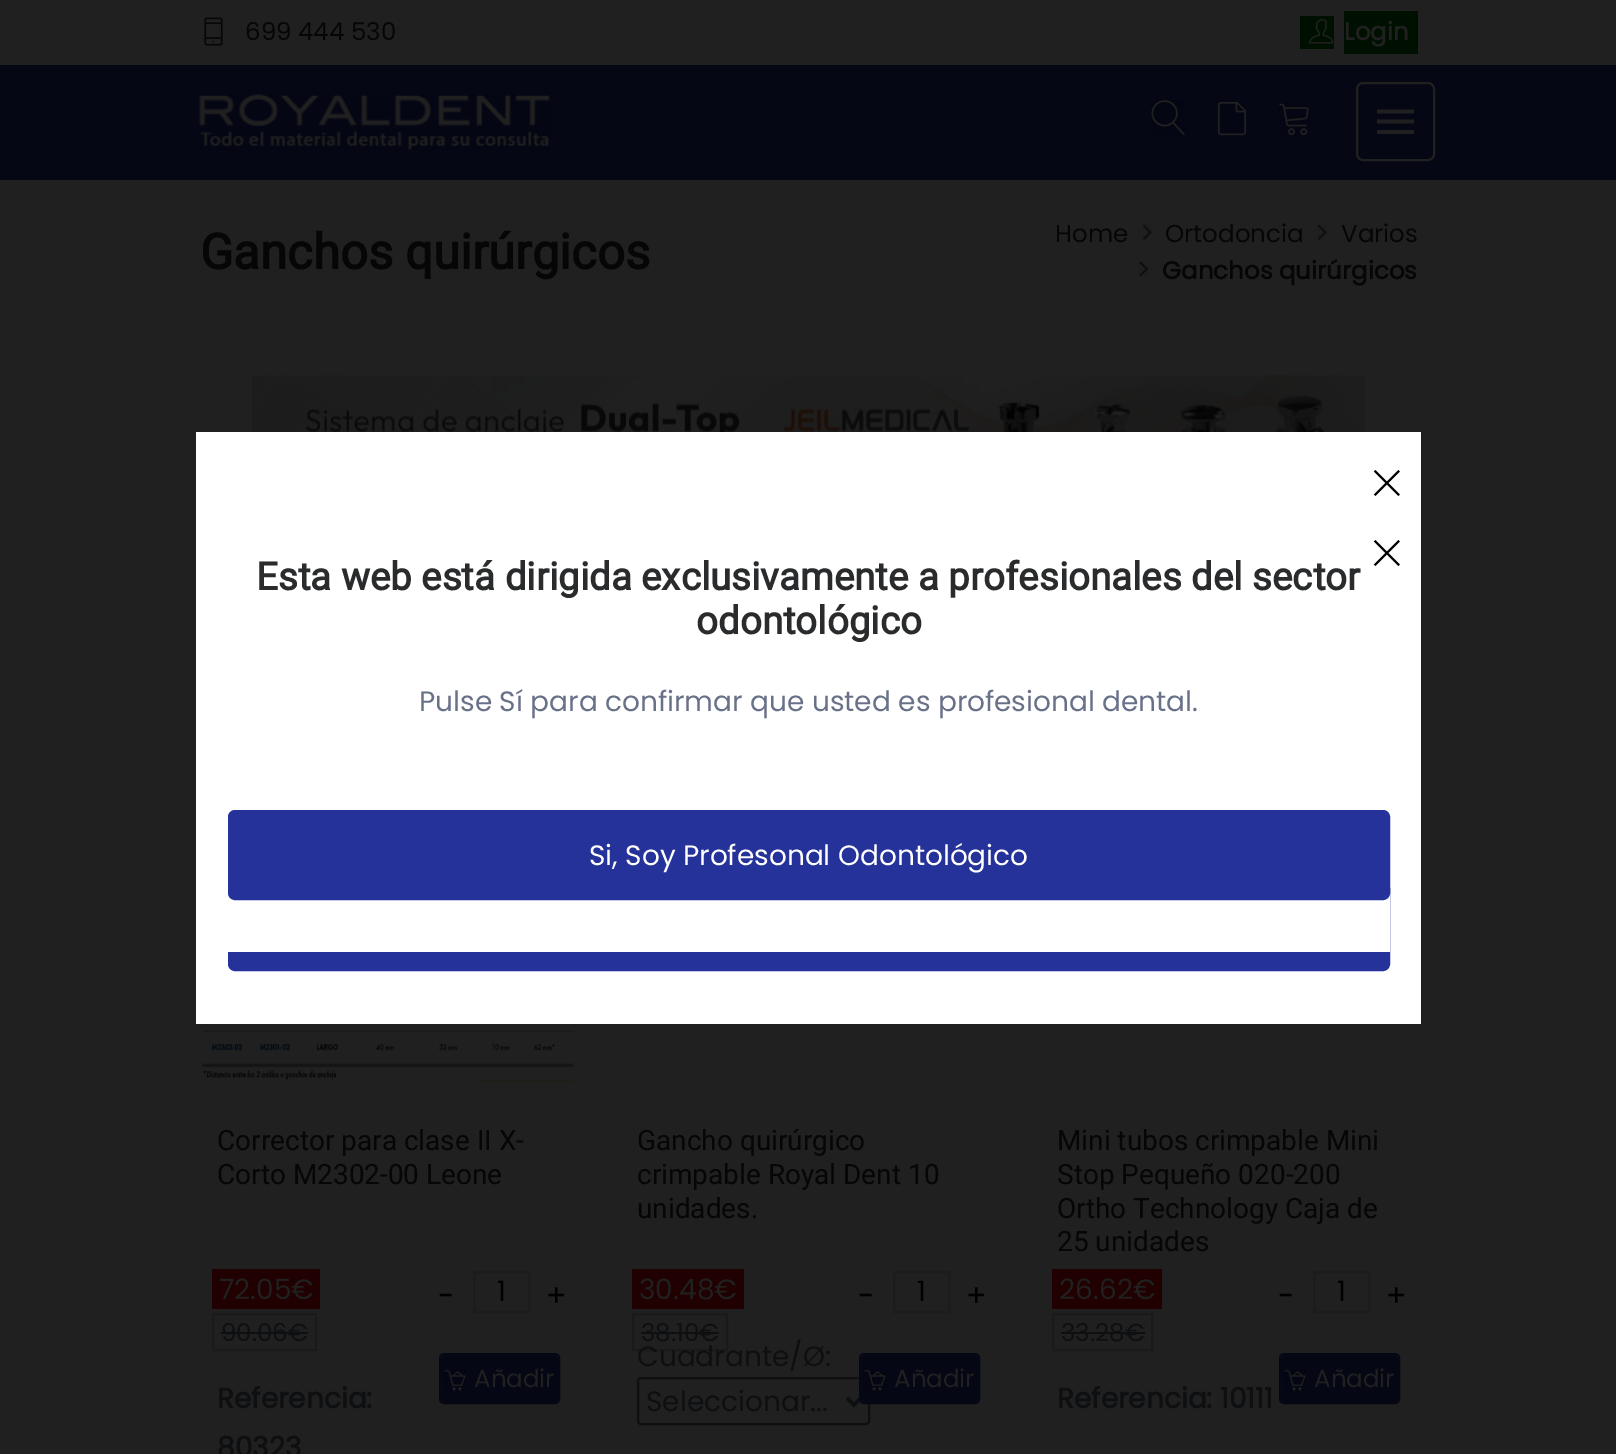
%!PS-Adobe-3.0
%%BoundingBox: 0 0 1616 1454
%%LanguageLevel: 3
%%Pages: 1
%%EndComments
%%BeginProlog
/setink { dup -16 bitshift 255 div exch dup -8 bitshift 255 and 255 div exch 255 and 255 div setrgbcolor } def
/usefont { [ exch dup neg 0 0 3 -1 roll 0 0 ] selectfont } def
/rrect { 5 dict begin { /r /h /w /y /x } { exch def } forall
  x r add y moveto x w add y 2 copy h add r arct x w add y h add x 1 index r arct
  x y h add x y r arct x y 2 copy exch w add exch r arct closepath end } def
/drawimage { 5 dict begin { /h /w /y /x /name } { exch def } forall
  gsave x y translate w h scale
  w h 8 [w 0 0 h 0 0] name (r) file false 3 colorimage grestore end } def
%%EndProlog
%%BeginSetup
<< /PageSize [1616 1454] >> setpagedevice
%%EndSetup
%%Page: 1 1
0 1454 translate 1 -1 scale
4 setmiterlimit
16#202020 setink
0 0 1616 1454 rectfill
(img1.raw) 204 17 19 29 drawimage
/Poppins-Regular 24.5 usefont
16#060606 setink
245 40 moveto (699 444 530) show
16#001000 setink
1300 16 34 33 rectfill
(img2.raw) 1309 19 25 25 drawimage
1344 11 74 43 rectfill
/Poppins-Bold 24.5 usefont
16#202020 setink
1344 40 moveto (Login) show
16#050714 setink
0 65 1616 115 rectfill
(img3.raw) 199 94 351 56 drawimage
(img4.raw) 1151 100 34 36 drawimage
(img5.raw) 1218 101 28 35 drawimage
(img6.raw) 1279 103 30 33 drawimage
16#202020 setink
2 setlinewidth
1357 83 77 77 6 rrect stroke
1377 134 moveto 1377 130 lineto 1414 130 lineto 1414 134 lineto closepath 1377 123.5 moveto 1377 119.5 lineto 1414 119.5 lineto 1414 123.5 lineto closepath 1377 109.5 moveto 1414 109.5 lineto 1414 113.5 lineto 1377 113.5 lineto closepath fill
/Roboto-Bold 49 usefont
16#060606 setink
200 269 moveto (Ganchos quirúrgicos) show
/Poppins-Regular 24.5 usefont
1055 242 moveto (Home) show
(img7.raw) 1142 224 10 16 drawimage
1165 242 moveto (Ortodoncia) show
(img7.raw) 1317 224 10 16 drawimage
1341 242 moveto (Varios) show
(img8.raw) 1139 261 10 16 drawimage
/Poppins-Bold 24.5 usefont
1162 279 moveto (Ganchos quirúrgicos) show
(img9.raw) 252 375 1113 57 drawimage
16#FFFFFF setink
196 432 1225 592 rectfill
(img10.raw) 1373 470 27 26 drawimage
16#25329A setink
229 883 1160 87 6 rrect stroke
234 884 moveto 821 884 lineto 821 970 lineto 234 970 lineto 231 970 229 968 229 965 curveto 229 889 lineto 229 886 231 884 234 884 curveto closepath fill
796 884 moveto 1383 884 lineto 1386 884 1388 886 1388 889 curveto 1388 965 lineto 1388 968 1386 970 1383 970 curveto 796 970 lineto closepath fill
16#FFFFFF setink
228 882 1162 70 rectfill
(img10.raw) 1373 540 27 26 drawimage
/Roboto-Bold 38.5 usefont
16#292B2C setink
256 590 moveto (Esta web está dirigida exclusivamente a profesionales del sector) show
696 634 moveto (odontológico) show
/Poppins-Regular 28 usefont
16#687188 setink
419 711 moveto (Pulse Sí para confirmar que usted es profesional dental.) show
16#25329A setink
229 811 1160 88 6 rrect stroke
234 812 moveto 821 812 lineto 821 898 lineto 234 898 lineto 231 898 229 896 229 893 curveto 229 817 lineto 229 814 231 812 234 812 curveto closepath fill
796 812 moveto 1383 812 lineto 1386 812 1388 814 1388 817 curveto 1388 893 lineto 1388 896 1386 898 1383 898 curveto 796 898 lineto closepath fill
16#FFFFFF setink
589 865 moveto (Si, Soy Profesonal Odontológico) show
(img11.raw) 202 1024 375 61 drawimage
/Roboto-Regular 28 usefont
16#060606 setink
217 1150 moveto (Corrector para clase II X-) show
217 1184 moveto (Corto M2302-00 Leone) show
16#200000 setink
212 1269 108 40 rectfill
/Poppins-Regular 28 usefont
16#202020 setink
219 1299 moveto (72.05€) show
16#1A1A1A setink
213 1314 103 36 rectstroke
/Poppins-Regular 24.5 usefont
16#0D0F11 setink
221 1341 moveto (90.06€) show
221 1332 87 2 rectfill
/Poppins-Regular 30 usefont
16#000000 setink
438 1306 moveto (-) show
16#1C1C1C setink
474 1272 55 40 rectstroke
/Poppins-Regular 28 usefont
16#000000 setink
497 1301 moveto (1) show
/Poppins-Regular 30 usefont
546 1306 moveto (+) show
16#050714 setink
440 1354 119 49 4 rrect stroke
445 1355 moveto 501 1355 lineto 501 1402 lineto 445 1402 lineto 443 1402 441 1400 441 1398 curveto 441 1359 lineto 441 1357 443 1355 445 1355 curveto closepath fill
499 1355 moveto 554 1355 lineto 556 1355 558 1357 558 1359 curveto 558 1398 lineto 558 1400 556 1402 554 1402 curveto 499 1402 lineto closepath fill
(img12.raw) 444 1370 22 21 drawimage
/Poppins-Regular 24.5 usefont
16#202020 setink
474 1387 moveto (Añadir) show
/Poppins-Bold 28 usefont
16#0D0F11 setink
217 1408 moveto (Referencia:) show
217 1457 moveto (80323) show
/Roboto-Regular 28 usefont
16#060606 setink
[
    [(Gancho quirúrgico) 637 1150]
    [(crimpable Royal Dent 10) 637 1184]
    [(unidades.) 637 1218]
] { aload pop moveto show } forall
16#200000 setink
632 1269 112 40 rectfill
/Poppins-Regular 28 usefont
16#202020 setink
639 1299 moveto (30.48€) show
16#1A1A1A setink
633 1314 94 36 rectstroke
/Poppins-Regular 24.5 usefont
16#0D0F11 setink
641 1341 moveto (38.10€) show
641 1332 78 2 rectfill
/Poppins-Regular 30 usefont
16#000000 setink
858 1306 moveto (-) show
16#1C1C1C setink
894 1272 55 40 rectstroke
/Poppins-Regular 28 usefont
16#000000 setink
917 1301 moveto (1) show
/Poppins-Regular 30 usefont
966 1306 moveto (+) show
/Poppins-Regular 28 usefont
16#0D0F11 setink
637 1366 moveto (Cuadrante/Ø:) show
16#0F0F0F setink
638 1378 231 46 3 rrect stroke
16#0E0F10 setink
3.5 setlinewidth
847 1398 moveto 854 1405 lineto 861 1398 lineto stroke
16#0D0F11 setink
646 1411 moveto (Seleccionar...) show
16#050714 setink
2 setlinewidth
860 1354 119 49 4 rrect stroke
865 1355 moveto 921 1355 lineto 921 1402 lineto 865 1402 lineto 863 1402 861 1400 861 1398 curveto 861 1359 lineto 861 1357 863 1355 865 1355 curveto closepath fill
919 1355 moveto 974 1355 lineto 976 1355 978 1357 978 1359 curveto 978 1398 lineto 978 1400 976 1402 974 1402 curveto 919 1402 lineto closepath fill
(img12.raw) 864 1370 22 21 drawimage
/Poppins-Regular 24.5 usefont
16#202020 setink
894 1387 moveto (Añadir) show
/Roboto-Regular 28 usefont
16#060606 setink
[
    [(Mini tubos crimpable Mini) 1057 1150]
    [(Stop Pequeño 020-200) 1057 1184]
    [(Ortho Technology Caja de) 1057 1218]
    [(25 unidades) 1057 1251]
] { aload pop moveto show } forall
16#200000 setink
1052 1269 110 40 rectfill
/Poppins-Regular 28 usefont
16#202020 setink
1059 1299 moveto (26.62€) show
16#1A1A1A setink
1053 1314 99 36 rectstroke
/Poppins-Regular 24.5 usefont
16#0D0F11 setink
1061 1341 moveto (33.28€) show
1061 1332 84 2 rectfill
/Poppins-Regular 30 usefont
16#000000 setink
1278 1306 moveto (-) show
16#1C1C1C setink
1314 1272 55 40 rectstroke
/Poppins-Regular 28 usefont
16#000000 setink
1337 1301 moveto (1) show
/Poppins-Regular 30 usefont
1386 1306 moveto (+) show
16#050714 setink
1280 1354 119 49 4 rrect stroke
1285 1355 moveto 1341 1355 lineto 1341 1402 lineto 1285 1402 lineto 1283 1402 1281 1400 1281 1398 curveto 1281 1359 lineto 1281 1357 1283 1355 1285 1355 curveto closepath fill
1339 1355 moveto 1394 1355 lineto 1396 1355 1398 1357 1398 1359 curveto 1398 1398 lineto 1398 1400 1396 1402 1394 1402 curveto 1339 1402 lineto closepath fill
(img12.raw) 1284 1370 22 21 drawimage
/Poppins-Regular 24.5 usefont
16#202020 setink
1314 1387 moveto (Añadir) show
/Poppins-Bold 28 usefont
16#0D0F11 setink
1057 1408 moveto (Referencia: 10111) show
showpage
%%EOF
